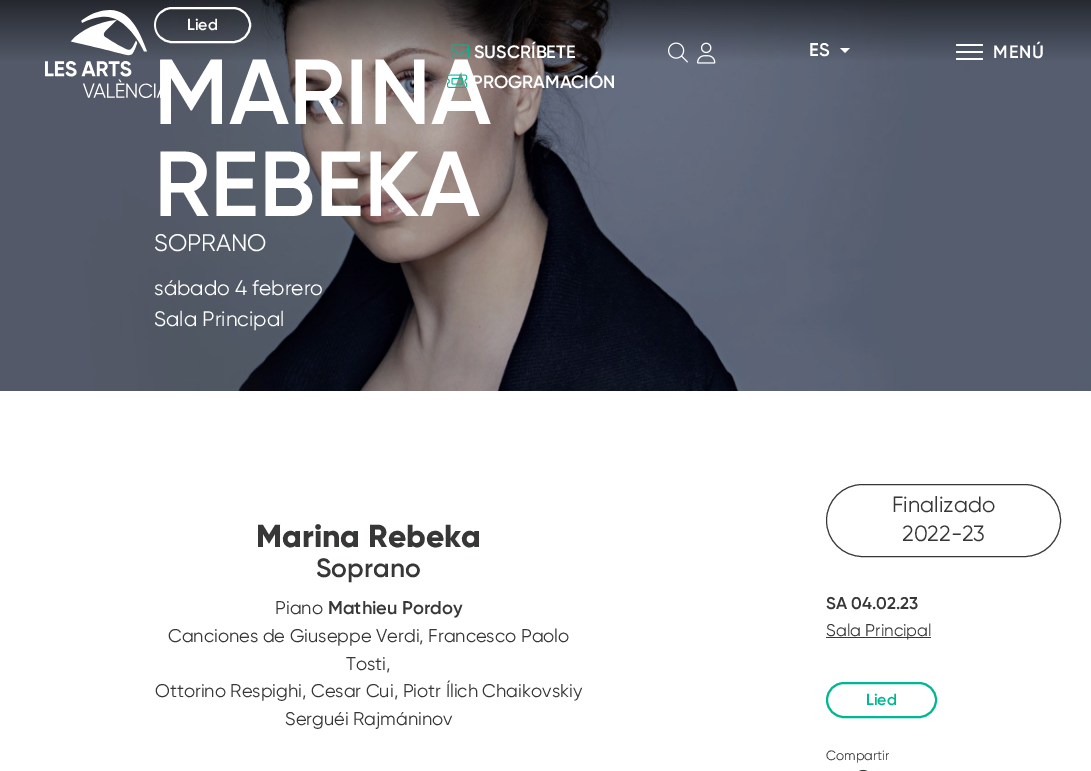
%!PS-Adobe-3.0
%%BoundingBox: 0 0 1091 771
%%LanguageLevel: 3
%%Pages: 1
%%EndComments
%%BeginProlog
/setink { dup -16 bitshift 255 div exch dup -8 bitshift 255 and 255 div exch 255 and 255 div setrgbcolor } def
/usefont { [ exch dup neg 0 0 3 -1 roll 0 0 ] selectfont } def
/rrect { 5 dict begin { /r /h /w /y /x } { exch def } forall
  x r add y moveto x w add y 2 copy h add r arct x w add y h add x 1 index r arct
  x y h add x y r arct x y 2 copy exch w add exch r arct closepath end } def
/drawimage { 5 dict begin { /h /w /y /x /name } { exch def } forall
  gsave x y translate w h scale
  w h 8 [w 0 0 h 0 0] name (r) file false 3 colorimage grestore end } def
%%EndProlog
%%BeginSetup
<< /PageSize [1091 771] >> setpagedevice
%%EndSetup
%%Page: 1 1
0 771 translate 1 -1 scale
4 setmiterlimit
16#FFFFFF setink
0 0 1091 771 rectfill
(img1.raw) 0 0 1091 391 drawimage
2 setlinewidth
155 8 95 34 17 rrect stroke
/Gilroy-SemiBold 16 usefont
187 30 moveto (Lied) show
/Gilroy-SemiBold 92 usefont
154 124 moveto (MARINA) show
154 216 moveto (REBEKA) show
/Gilroy-Regular 24 usefont
154 251 moveto (SOPRANO) show
/Gilroy-Regular 21 usefont
154 295 moveto (sábado 4 febrero) show
154 326 moveto (Sala Principal) show
/Gilroy-ExtraBold 31.75 usefont
16#363837 setink
256 547 moveto (Marina Rebeka) show
/Gilroy-SemiBold 26.5 usefont
316 577 moveto (Soprano) show
/Gilroy-Regular 18.4 usefont
275 614 moveto (Piano) show
/Gilroy-SemiBold 18.4 usefont
328 614 moveto (Mathieu Pordoy) show
/Gilroy-Regular 18.4 usefont
[
    [(Canciones de Giuseppe Verdi, Francesco Paolo) 168 642]
    [(Tosti,) 346 670]
    [(Ottorino Respighi, Cesar Cui, Piotr Ílich Chaikovskiy) 155 697]
    [(Serguéi Rajmáninov) 285 725]
] { aload pop moveto show } forall
1 setlinewidth
826.5 484.5 234 72 36 rrect stroke
/Gilroy-Regular 22 usefont
892 512 moveto (Finalizado) show
902 541 moveto (2022-23) show
/Gilroy-SemiBold 17 usefont
826 609 moveto (SA 04.02.23) show
826 637 105 1 rectfill
/Gilroy-Regular 17 usefont
826 636 moveto (Sala Principal) show
16#00B793 setink
2 setlinewidth
827 683 109 34 17 rrect stroke
/Gilroy-SemiBold 16 usefont
866 705 moveto (Lied) show
/Gilroy-Regular 13.5 usefont
16#363837 setink
826 760 moveto (Compartir) show
(img2.raw) 859 769 9 2 drawimage
(img3.raw) 45 10 116 88 drawimage
(img4.raw) 451 44 18 14 drawimage
/Gilroy-SemiBold 18 usefont
16#FFFFFF setink
474 58 moveto (SUSCRÍBETE) show
(img5.raw) 447 74 21 14 drawimage
472 88 moveto (PROGRAMACIÓN) show
(img6.raw) 668 42 20 21 drawimage
(img7.raw) 697 42 19 22 drawimage
/Gilroy-SemiBold 18.4 usefont
809 56 moveto (ES) show
840 48 moveto 850 48 lineto 845 53 lineto closepath fill
956 44 27 2 1 rrect fill
956 51 27 2 1 rrect fill
956 58 27 2 1 rrect fill
/Gilroy-SemiBold 18 usefont
993 58 moveto 1 0 (MENÚ) ashow
showpage
%%EOF
